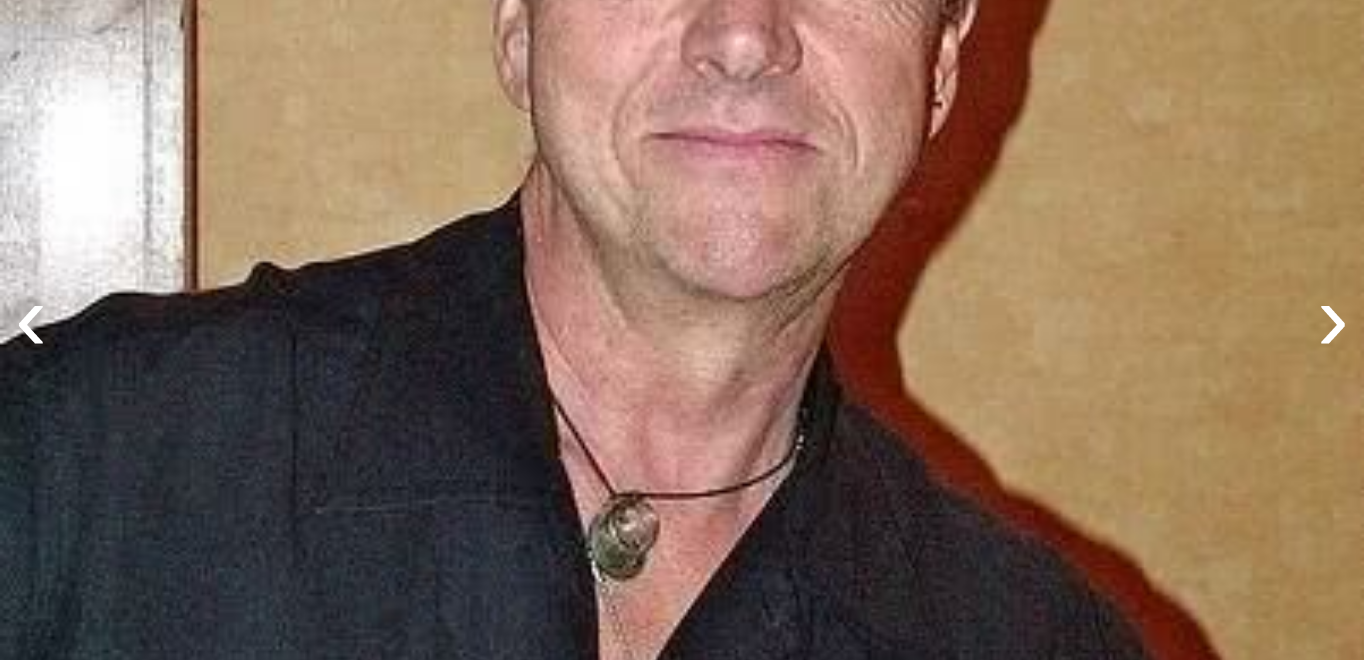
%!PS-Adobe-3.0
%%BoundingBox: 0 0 1364 660
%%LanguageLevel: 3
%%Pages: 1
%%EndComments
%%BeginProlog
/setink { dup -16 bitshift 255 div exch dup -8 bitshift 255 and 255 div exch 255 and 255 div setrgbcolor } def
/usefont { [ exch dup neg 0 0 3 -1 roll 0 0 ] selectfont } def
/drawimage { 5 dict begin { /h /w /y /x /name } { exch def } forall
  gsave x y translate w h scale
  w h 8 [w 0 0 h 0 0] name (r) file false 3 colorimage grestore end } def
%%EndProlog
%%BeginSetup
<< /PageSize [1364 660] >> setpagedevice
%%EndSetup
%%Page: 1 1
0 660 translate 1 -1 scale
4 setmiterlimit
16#FFFFFF setink
0 0 1364 660 rectfill
(img1.raw) 0 0 1364 660 drawimage
/LiberationSans-Regular 96 usefont
15 350 moveto (‹) show
1317 350 moveto (›) show
showpage
%%EOF
